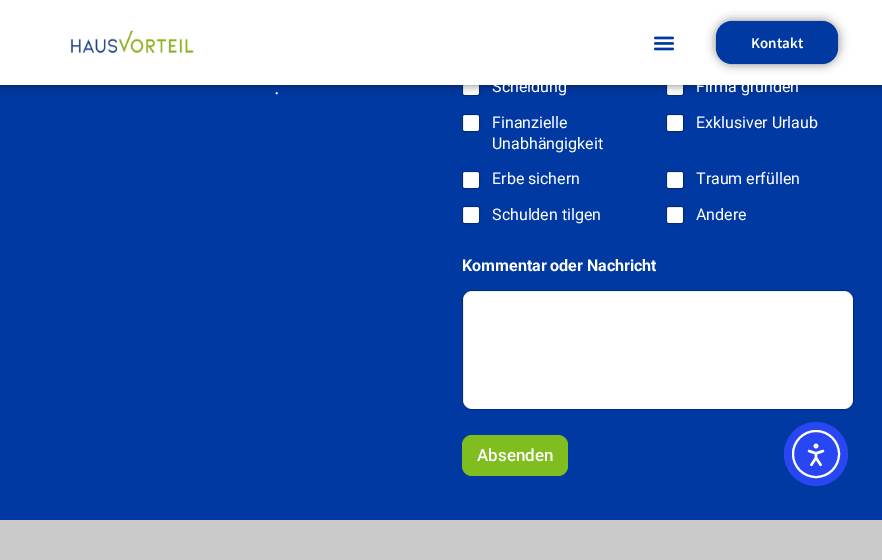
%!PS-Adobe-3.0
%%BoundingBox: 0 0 882 560
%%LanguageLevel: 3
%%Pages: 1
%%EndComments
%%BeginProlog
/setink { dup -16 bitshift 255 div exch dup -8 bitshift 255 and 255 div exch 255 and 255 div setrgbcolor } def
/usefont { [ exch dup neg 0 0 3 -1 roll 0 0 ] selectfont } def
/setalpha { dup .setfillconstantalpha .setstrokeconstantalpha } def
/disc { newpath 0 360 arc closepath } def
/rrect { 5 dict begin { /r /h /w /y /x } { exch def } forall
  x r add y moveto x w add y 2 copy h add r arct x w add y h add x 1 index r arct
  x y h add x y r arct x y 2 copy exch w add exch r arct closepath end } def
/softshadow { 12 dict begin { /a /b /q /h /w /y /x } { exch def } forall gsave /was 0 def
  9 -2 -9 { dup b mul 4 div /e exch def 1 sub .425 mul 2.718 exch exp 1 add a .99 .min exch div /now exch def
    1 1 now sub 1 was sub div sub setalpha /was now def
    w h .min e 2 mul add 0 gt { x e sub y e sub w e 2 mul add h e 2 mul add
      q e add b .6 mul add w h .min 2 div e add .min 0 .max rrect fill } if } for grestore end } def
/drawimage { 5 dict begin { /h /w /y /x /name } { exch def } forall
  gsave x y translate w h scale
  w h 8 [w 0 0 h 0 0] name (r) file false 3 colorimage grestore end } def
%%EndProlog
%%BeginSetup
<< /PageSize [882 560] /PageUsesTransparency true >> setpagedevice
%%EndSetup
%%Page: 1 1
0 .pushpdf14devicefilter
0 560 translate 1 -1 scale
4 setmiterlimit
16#0139A3 setink
0 0 882 560 rectfill
16#FFFFFF setink
463 79 16 16 2 rrect fill
0.25 setalpha
16#000000 setink
462.5 78.5 17 17 2.5 rrect stroke
1 setalpha
16#FFFFFF setink
667 79 16 16 2 rrect fill
0.25 setalpha
16#000000 setink
666.5 78.5 17 17 2.5 rrect stroke
1 setalpha
0 0 882 85 0 5 0.5 softshadow
16#FFFFFF setink
0 0 882 85 rectfill
(img1.raw) 70 30 124 24 drawimage
(img2.raw) 653 36 22 15 drawimage
16#000000 setink
716 21 122 43 16 5 0.5 softshadow
16#0139A3 setink
716 21 122 43 16 rrect fill
/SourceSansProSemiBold-SemiBold 15 usefont
16#FFFFFF setink
751 48 moveto (Kontakt) show
/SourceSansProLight-Light 25 usefont
274 94 moveto (.) show
/Roboto-Regular 16 usefont
492 92 moveto (Scheidung) show
696 92 moveto (Firma gründen) show
463 115 16 16 2 rrect fill
0.25 setalpha
16#000000 setink
462.5 114.5 17 17 2.5 rrect stroke
1 setalpha
16#FFFFFF setink
492 128 moveto (Finanzielle) show
492 149 moveto (Unabhängigkeit) show
667 115 16 16 2 rrect fill
0.25 setalpha
16#000000 setink
666.5 114.5 17 17 2.5 rrect stroke
1 setalpha
16#FFFFFF setink
696 128 moveto (Exklusiver Urlaub) show
463 172 16 16 2 rrect fill
0.25 setalpha
16#000000 setink
462.5 171.5 17 17 2.5 rrect stroke
1 setalpha
16#FFFFFF setink
492 184 moveto (Erbe sichern) show
667 172 16 16 2 rrect fill
0.25 setalpha
16#000000 setink
666.5 171.5 17 17 2.5 rrect stroke
1 setalpha
16#FFFFFF setink
696 184 moveto (Traum erfüllen) show
463 207 16 16 2 rrect fill
0.25 setalpha
16#000000 setink
462.5 206.5 17 17 2.5 rrect stroke
1 setalpha
16#FFFFFF setink
492 220 moveto (Schulden tilgen) show
667 207 16 16 2 rrect fill
0.25 setalpha
16#000000 setink
666.5 206.5 17 17 2.5 rrect stroke
1 setalpha
16#FFFFFF setink
696 220 moveto (Andere) show
/Roboto-Bold 16 usefont
462 271 moveto (Kommentar oder Nachricht) show
463 291 390 118 9 rrect fill
0.25 setalpha
16#000000 setink
462.5 290.5 391 119 9.5 rrect stroke
1 setalpha
16#80BD1F setink
462 435 106 41 10 rrect fill
/Roboto-Medium 17 usefont
16#FFFFFF setink
477 461 moveto (Absenden) show
16#2847F3 setink
816 454 32 disc fill
16#FFFFFF setink
2 setlinewidth
816 454 23 disc stroke
(img3.raw) 807 443 18 24 drawimage
16#CACACA setink
0 520 882 40 rectfill
.poppdf14devicefilter showpage
%%EOF
